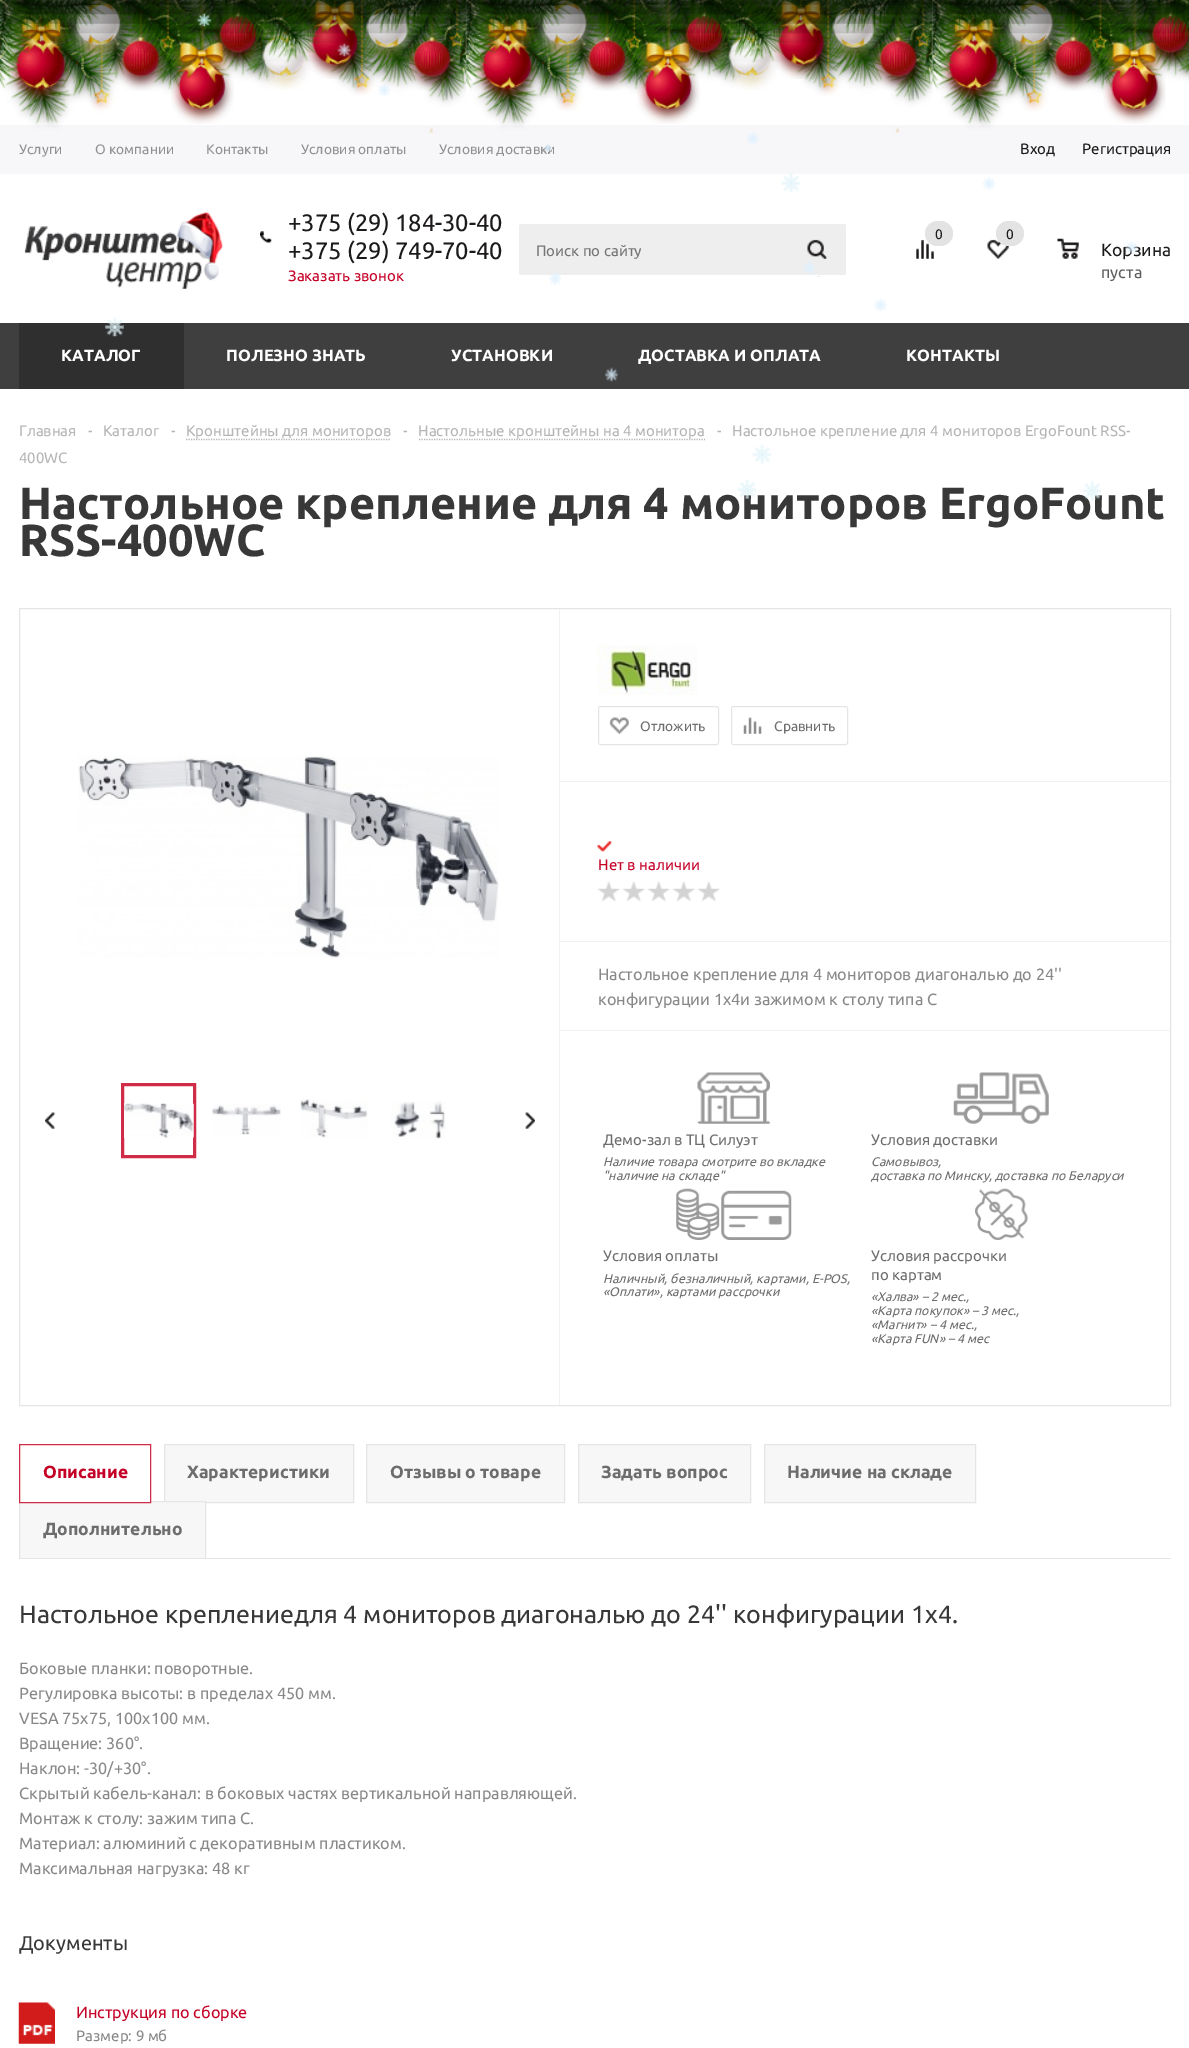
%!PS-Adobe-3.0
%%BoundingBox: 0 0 1189 2048
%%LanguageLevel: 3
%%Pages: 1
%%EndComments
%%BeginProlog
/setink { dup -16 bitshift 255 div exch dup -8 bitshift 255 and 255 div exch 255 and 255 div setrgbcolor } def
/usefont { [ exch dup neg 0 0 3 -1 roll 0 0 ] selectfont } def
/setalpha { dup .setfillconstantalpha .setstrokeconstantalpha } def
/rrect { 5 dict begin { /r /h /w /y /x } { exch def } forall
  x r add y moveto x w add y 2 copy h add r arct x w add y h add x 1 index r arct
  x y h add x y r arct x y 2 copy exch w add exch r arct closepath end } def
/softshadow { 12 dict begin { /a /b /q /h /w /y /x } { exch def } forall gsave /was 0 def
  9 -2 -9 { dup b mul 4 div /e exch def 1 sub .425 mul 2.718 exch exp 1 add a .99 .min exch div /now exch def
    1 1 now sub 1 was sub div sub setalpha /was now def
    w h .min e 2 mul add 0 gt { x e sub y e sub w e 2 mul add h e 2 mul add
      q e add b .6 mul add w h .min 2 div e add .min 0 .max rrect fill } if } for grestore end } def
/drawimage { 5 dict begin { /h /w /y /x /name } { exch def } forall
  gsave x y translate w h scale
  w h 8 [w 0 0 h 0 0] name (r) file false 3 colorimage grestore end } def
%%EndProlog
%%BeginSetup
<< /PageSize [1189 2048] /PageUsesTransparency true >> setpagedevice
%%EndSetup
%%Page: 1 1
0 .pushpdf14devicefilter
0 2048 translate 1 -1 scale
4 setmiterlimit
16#FFFFFF setink
0 0 1189 2048 rectfill
16#F7F7F9 setink
0 125 1189 49 rectfill
(img5.raw) 0 0 1189 133 drawimage
(img10.raw) 171 0 63 124 drawimage
(img7.raw) 8 0 65 102 drawimage
(img6.raw) 0 0 32 89 drawimage
(img9.raw) 67 0 62 58 drawimage
(img8.raw) 31 0 76 34 drawimage
(img11.raw) 212 0 51 67 drawimage
(img17.raw) 255 7 56 83 drawimage
(img12.raw) 221 0 36 39 drawimage
(img14.raw) 304 0 61 79 drawimage
(img13.raw) 256 0 63 63 drawimage
(img15.raw) 359 0 57 61 drawimage
(img16.raw) 114 11 52 80 drawimage
(img20.raw) 406 12 52 79 drawimage
(img18.raw) 361 0 98 35 drawimage
(img19.raw) 458 0 9 86 drawimage
(img22.raw) 474 0 65 102 drawimage
(img21.raw) 466 0 32 89 drawimage
(img24.raw) 534 0 61 58 drawimage
(img23.raw) 497 0 77 33 drawimage
(img25.raw) 637 0 63 124 drawimage
(img26.raw) 678 0 51 67 drawimage
(img32.raw) 721 7 57 83 drawimage
(img27.raw) 687 0 36 39 drawimage
(img29.raw) 771 0 60 79 drawimage
(img28.raw) 722 0 63 63 drawimage
(img30.raw) 825 0 58 61 drawimage
(img31.raw) 581 11 51 80 drawimage
(img35.raw) 872 12 52 79 drawimage
(img33.raw) 827 0 98 35 drawimage
(img34.raw) 925 0 8 86 drawimage
(img37.raw) 941 0 65 102 drawimage
(img36.raw) 932 0 32 89 drawimage
(img39.raw) 1000 0 61 58 drawimage
(img38.raw) 963 0 77 33 drawimage
(img40.raw) 1103 0 63 124 drawimage
(img41.raw) 1145 0 44 67 drawimage
(img42.raw) 1154 0 35 39 drawimage
(img43.raw) 1047 11 52 80 drawimage
(img44.raw) 1188 3 1 37 drawimage
(img45.raw) 1188 56 1 11 drawimage
16#000000 setink
0 -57 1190 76 0 19 0.75 softshadow
(img1.raw) 197 13 15 14 drawimage
(img2.raw) 337 42 15 15 drawimage
(img3.raw) 377 84 14 13 drawimage
(img4.raw) 746 132 13 13 drawimage
/Ubuntu-Regular 13.75 usefont
16#919191 setink
[
    [(Услуги) 19 154]
    [(О компании) 95 154]
    [(Контакты) 206 154]
    [(Условия оплаты) 301 154]
    [(Условия доставки) 439 154]
] { aload pop moveto show } forall
/Ubuntu-Regular 15 usefont
16#1D1A1A setink
1020 154 moveto (Вход) show
1082 154 moveto (Регистрация) show
(img46.raw) 24 212 199 77 drawimage
(img47.raw) 260 231 12 12 drawimage
/Ubuntu-Regular 23.75 usefont
288 231 moveto (+375 \(29\) 184-30-40) show
288 259 moveto (+375 \(29\) 749-70-40) show
/Ubuntu-Regular 15 usefont
16#C50026 setink
288 281 moveto (Заказать звонок) show
16#EEEEEE setink
519 224 327 51 2.5 rrect fill
16#757575 setink
536 256 moveto (Поиск по сайту) show
(img48.raw) 807 239 20 38 drawimage
(img49.raw) 916 240 18 19 drawimage
16#E3E3E3 setink
925 221 28 25 12.5 rrect fill
/Ubuntu-Regular 13.75 usefont
16#1D1A1A setink
935 239 moveto (0) show
(img50.raw) 987 239 22 20 drawimage
16#E3E3E3 setink
996 221 28 25 12.5 rrect fill
16#1D1A1A setink
1006 239 moveto (0) show
(img51.raw) 1057 238 22 21 drawimage
/Ubuntu-Regular 17.5 usefont
1101 256 moveto (Корзина) show
/Ubuntu-Regular 16.25 usefont
16#5F5F5F setink
1101 278 moveto (пуста) show
16#3F3F3F setink
0 323 1189 66 rectfill
16#2F2F2F setink
19 323 165 66 rectfill
/Ubuntu-Bold 16.25 usefont
16#FFFFFF setink
[
    [(КАТАЛОГ) 61 361]
    [(ПОЛЕЗНО ЗНАТЬ) 226 361]
    [(УСТАНОВКИ) 451 361]
    [(ДОСТАВКА И ОПЛАТА) 638 361]
    [(КОНТАКТЫ) 906 361]
] { aload pop moveto show } forall
/Ubuntu-Regular 15 usefont
16#B6B5B5 setink
[
    [(Главная) 19 436]
    [(-) 88 436]
    [(Каталог) 103 436]
    [(-) 171 436]
] { aload pop moveto show } forall
16#B4B4B4 setink
1.2 setlinewidth
[1.25 1.25] 0 setdash
186 439.5 moveto 391 439.5 lineto stroke
16#B6B5B5 setink
186 436 moveto (Кронштейны для мониторов) show
403 436 moveto (-) show
16#B4B4B4 setink
419 439.5 moveto 705 439.5 lineto stroke
16#B6B5B5 setink
[
    [(Настольные кронштейны на 4 монитора) 418 436]
    [(-) 717 436]
    [(Настольное крепление для 4 мониторов ErgoFount RSS-) 732 436]
    [(400WC) 19 463]
] { aload pop moveto show } forall
/Ubuntu-Bold 45 usefont
16#383838 setink
19 519 moveto (Настольное крепление для 4 мониторов ErgoFount) show
19 556 moveto (RSS-400WC) show
16#E5E5E5 setink
1 setlinewidth
[] 0 setdash
19.5 608.5 1151 797 rectstroke
(img52.raw) 78 755 421 203 drawimage
16#D02C47 setink
3 setlinewidth
122.5 1084.5 72 72 rectstroke
(img53.raw) 124 1103 70 35 drawimage
(img54.raw) 212 1104 69 31 drawimage
(img55.raw) 300 1099 68 39 drawimage
(img56.raw) 391 1101 55 38 drawimage
(img57.raw) 45 1112 11 17 drawimage
(img58.raw) 525 1112 10 17 drawimage
16#F2F2F2 setink
559 609 1 796 rectfill
560 781 610 1 rectfill
(img59.raw) 597 645 101 50 drawimage
16#E5E5E5 setink
1 setlinewidth
598.5 706.5 120 38 2 rrect stroke
(img60.raw) 609 717 20 17 drawimage
/Ubuntu-Regular 13.75 usefont
16#6D6D6D setink
640 731 moveto (Отложить) show
16#E5E5E5 setink
731.5 706.5 116 38 2 rrect stroke
(img61.raw) 743 717 19 17 drawimage
16#6D6D6D setink
774 731 moveto (Сравнить) show
16#F2F2F2 setink
560 941 610 1 rectfill
(img62.raw) 597 841 15 11 drawimage
/Ubuntu-Regular 15 usefont
16#C50026 setink
598 870 moveto (Нет в наличии) show
(img63.raw) 597 881 23 21 drawimage
(img63.raw) 622 881 23 21 drawimage
(img63.raw) 647 881 23 21 drawimage
(img63.raw) 672 881 23 21 drawimage
(img63.raw) 697 881 23 21 drawimage
16#F2F2F2 setink
560 1030 610 1 rectfill
/Ubuntu-Regular 16.25 usefont
16#888888 setink
598 980 moveto (Настольное крепление для 4 мониторов диагональю до 24'') show
598 1005 moveto (конфигурации 1х4и зажимом к столу типа С) show
(img64.raw) 697 1072 73 52 drawimage
/Ubuntu-Regular 15 usefont
16#6D6D6D setink
603 1145 moveto (Демо-зал в ТЦ Силуэт) show
/Ubuntu-Italic 12.5 usefont
603 1166 moveto (Наличие товара смотрите во вкладке) show
603 1180 moveto ("наличие на складе") show
(img65.raw) 953 1072 96 52 drawimage
/Ubuntu-Regular 15 usefont
871 1145 moveto (Условия доставки) show
/Ubuntu-Italic 12.5 usefont
871 1166 moveto (Самовывоз,) show
871 1180 moveto (доставка по Минску, доставка по Беларуси) show
(img66.raw) 676 1188 116 52 drawimage
/Ubuntu-Regular 15 usefont
603 1261 moveto (Условия оплаты) show
/Ubuntu-Italic 12.5 usefont
603 1283 moveto (Наличный, безналичный, картами, E-POS,) show
603 1296 moveto («Оплати», картами рассрочки) show
(img67.raw) 975 1188 53 52 drawimage
/Ubuntu-Regular 15 usefont
871 1261 moveto (Условия рассрочки) show
871 1280 moveto (по картам) show
/Ubuntu-Italic 12.5 usefont
[
    [(«Халва» – 2 мес.,) 871 1301]
    [(«Карта покупок» – 3 мес.,) 871 1315]
    [(«Магнит» – 4 мес.,) 871 1329]
    [(«Карта FUN» – 4 мес) 871 1343]
] { aload pop moveto show } forall
16#F7F7F7 setink
164.5 1444.5 moveto 353.5 1444.5 lineto 353.5 1502.5 lineto 164.5 1502.5 lineto closepath gsave fill grestore
16#E5E5E5 setink
stroke
16#F7F7F7 setink
20 1502 185 56 rectfill
gsave
19 1444 1152 115 rectclip
16#E5E5E5 setink
19.5 1501.5 186 58 rectstroke
grestore
16#FFFFFF setink
20 1501 130 1 rectfill
16#D02C47 setink
19.5 1444.5 131 58 rectstroke
/Ubuntu-Bold 17.5 usefont
16#C50026 setink
43 1478 moveto (Описание) show
16#6D6D6D setink
187 1478 moveto (Характеристики) show
16#F7F7F7 setink
366.5 1444.5 moveto 564.5 1444.5 lineto 564.5 1502.5 lineto 366.5 1502.5 lineto closepath gsave fill grestore
16#E5E5E5 setink
stroke
16#6D6D6D setink
390 1478 moveto (Отзывы о товаре) show
16#F7F7F7 setink
578.5 1444.5 moveto 750.5 1444.5 lineto 750.5 1502.5 lineto 578.5 1502.5 lineto closepath gsave fill grestore
16#E5E5E5 setink
stroke
16#6D6D6D setink
601 1478 moveto (Задать вопрос) show
16#F7F7F7 setink
764.5 1444.5 moveto 975.5 1444.5 lineto 975.5 1502.5 lineto 764.5 1502.5 lineto closepath gsave fill grestore
16#E5E5E5 setink
stroke
16#6D6D6D setink
787 1478 moveto (Наличие на складе) show
43 1535 moveto (Дополнительно) show
16#E5E5E5 setink
19 1558 1152 1 rectfill
/Ubuntu-Regular 25 usefont
16#383838 setink
19 1623 moveto (Настольное креплениедля 4 мониторов диагональю до 24'' конфигурации 1х4.) show
/Ubuntu-Regular 16.25 usefont
16#888888 setink
[
    [(Боковые планки: поворотные.) 19 1674]
    [(Регулировка высоты: в пределах 450 мм.) 19 1699]
    [(VESA 75х75, 100х100 мм.) 19 1724]
    [(Вращение: 360°.) 19 1749]
    [(Наклон: -30/+30°.) 19 1774]
    [(Скрытый кабель-канал: в боковых частях вертикальной направляющей.) 19 1799]
    [(Монтаж к столу: зажим типа С.) 19 1824]
    [(Материал: алюминий с декоративным пластиком.) 19 1849]
    [(Максимальная нагрузка: 48 кг) 19 1874]
] { aload pop moveto show } forall
/Ubuntu-Regular 20 usefont
16#383838 setink
19 1950 moveto (Документы) show
(img68.raw) 18 2002 37 42 drawimage
/Ubuntu-Regular 16.25 usefont
16#C50026 setink
76 2018 moveto (Инструкция по сборке) show
/Ubuntu-Regular 15 usefont
16#888888 setink
76 2041 moveto (Размер: 9 мб) show
(img69.raw) 544 144 8 8 drawimage
(img70.raw) 781 174 19 19 drawimage
(img71.raw) 982 176 13 14 drawimage
(img72.raw) 1125 241 14 13 drawimage
(img73.raw) 803 261 12 13 drawimage
(img74.raw) 549 272 13 13 drawimage
(img75.raw) 874 298 13 14 drawimage
(img76.raw) 105 317 19 20 drawimage
(img77.raw) 605 367 13 15 drawimage
(img78.raw) 752 445 20 19 drawimage
(img79.raw) 737 480 20 19 drawimage
(img80.raw) 1082 481 20 19 drawimage
.poppdf14devicefilter showpage
%%EOF
